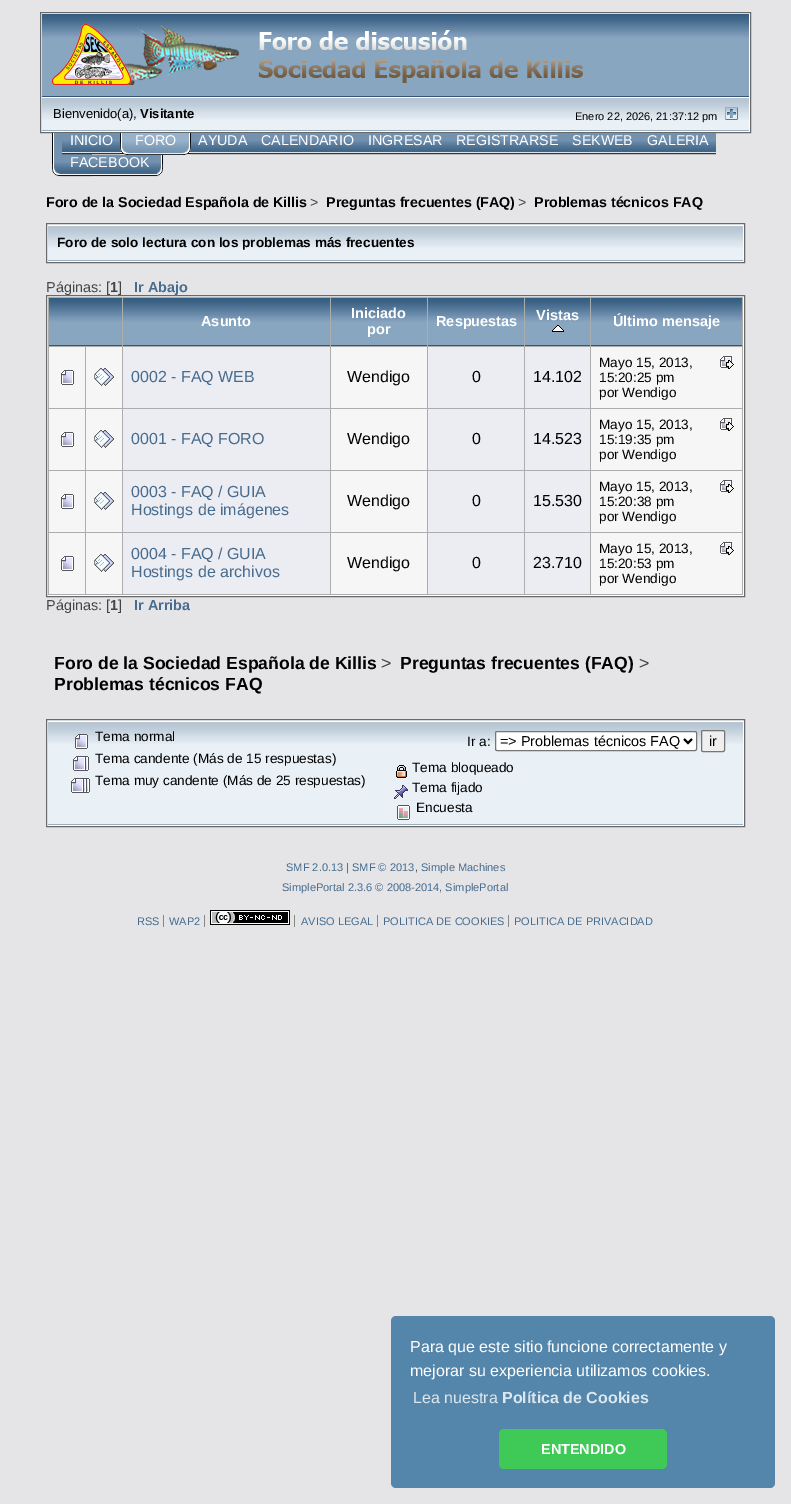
%!PS-Adobe-3.0
%%BoundingBox: 0 0 791 1504
%%LanguageLevel: 3
%%Pages: 1
%%EndComments
%%BeginProlog
/setink { dup -16 bitshift 255 div exch dup -8 bitshift 255 and 255 div exch 255 and 255 div setrgbcolor } def
/usefont { [ exch dup neg 0 0 3 -1 roll 0 0 ] selectfont } def
/rrect { 5 dict begin { /r /h /w /y /x } { exch def } forall
  x r add y moveto x w add y 2 copy h add r arct x w add y h add x 1 index r arct
  x y h add x y r arct x y 2 copy exch w add exch r arct closepath end } def
/drawimage { 5 dict begin { /h /w /y /x /name } { exch def } forall
  gsave x y translate w h scale
  w h 8 [w 0 0 h 0 0] name (r) file false 3 colorimage grestore end } def
%%EndProlog
%%BeginSetup
<< /PageSize [791 1504] >> setpagedevice
%%EndSetup
%%Page: 1 1
0 1504 translate 1 -1 scale
4 setmiterlimit
16#E5E5E8 setink
0 0 791 1504 rectfill
16#FFFFFF setink
40.5 12.5 moveto 750.5 12.5 lineto 750.5 132.5 lineto 40.5 132.5 lineto closepath gsave fill grestore
16#696969 setink
stroke
16#88A6C0 setink
42 38 707 58 rectfill
(img1.raw) 42 14 707 24 drawimage
16#375576 setink
42 96 707 1 rectfill
(img2.raw) 52 24 531 61 drawimage
16#E9F0F6 setink
42 120 707 10 rectfill
(img3.raw) 42 98 707 22 drawimage
16#9BAEBF setink
42 130 707 1 rectfill
/LiberationSans-Regular 13 usefont
16#000000 setink
53 118 moveto (Bienvenido\(a\),) show
/LiberationSans-Bold 13 usefont
140 118 moveto (Visitante) show
/LiberationSans-Regular 11 usefont
575 120 moveto (Enero 22, 2026, 21:37:12 pm) show
(img4.raw) 725 107 13 13 drawimage
(img5.raw) 52 133 40 44 drawimage
(img6.raw) 62 133 58 22 drawimage
/LiberationSans-Regular 14.25 usefont
16#FFFFFF setink
70 145 moveto (INICIO) show
(img7.raw) 183 133 8 22 drawimage
(img8.raw) 120 133 8 22 drawimage
(img9.raw) 128 133 55 22 drawimage
135 145 moveto (FORO) show
(img10.raw) 191 133 63 22 drawimage
198 145 moveto (AYUDA) show
(img11.raw) 254 133 107 22 drawimage
261 145 moveto (CALENDARIO) show
(img12.raw) 361 133 88 22 drawimage
368 145 moveto (INGRESAR) show
(img13.raw) 449 133 116 22 drawimage
456 145 moveto (REGISTRARSE) show
(img14.raw) 565 133 75 22 drawimage
572 145 moveto (SEKWEB) show
(img15.raw) 640 133 76 22 drawimage
647 145 moveto (GALERIA) show
(img16.raw) 62 155 101 22 drawimage
70 167 moveto (FACEBOOK) show
/LiberationSans-Bold 14.25 usefont
16#000000 setink
46 207 moveto (Foro de la Sociedad Española de Killis) show
/LiberationSans-Regular 14.25 usefont
16#444444 setink
310 207 moveto (>) show
/LiberationSans-Bold 14.25 usefont
16#000000 setink
326 207 moveto (Preguntas frecuentes \(FAQ\)) show
/LiberationSans-Regular 14.25 usefont
16#444444 setink
518 207 moveto (>) show
/LiberationSans-Bold 14.25 usefont
16#000000 setink
534 207 moveto (Problemas técnicos FAQ) show
16#FFFFFF setink
46.5 223.5 moveto 744.5 223.5 lineto 744.5 262.5 lineto 46.5 262.5 lineto closepath gsave fill grestore
16#696969 setink
stroke
16#E9F0F6 setink
48 248 695 12 rectfill
(img17.raw) 48 226 695 22 drawimage
16#9BAEBF setink
48 260 695 1 rectfill
/LiberationSans-Bold 13.6 usefont
16#000000 setink
57 247 moveto (Foro de solo lectura con los problemas más frecuentes) show
/LiberationSans-Regular 14.4 usefont
16#444444 setink
46 292 moveto (Páginas: [) show
/LiberationSans-Bold 14.4 usefont
110 292 moveto (1) show
/LiberationSans-Regular 14.4 usefont
118 292 moveto (]) show
/LiberationSans-Bold 14.4 usefont
16#476C8E setink
134 292 moveto (Ir Abajo) show
16#FFFFFF setink
46.5 295.5 moveto 744.5 295.5 lineto 744.5 596.5 lineto 46.5 596.5 lineto closepath gsave fill grestore
16#696969 setink
stroke
16#ADADAD setink
48 297 695 298 rectfill
16#88A6C0 setink
49 322 73 23 rectfill
(img18.raw) 49 298 73 24 drawimage
16#375576 setink
49 345 73 1 rectfill
16#88A6C0 setink
123 322 207 23 rectfill
(img19.raw) 123 298 207 24 drawimage
16#375576 setink
123 345 207 1 rectfill
/LiberationSans-Bold 14.5 usefont
16#FFFFFF setink
201 326 moveto (Asunto) show
16#88A6C0 setink
331 322 96 23 rectfill
(img20.raw) 331 298 96 24 drawimage
16#375576 setink
331 345 96 1 rectfill
16#FFFFFF setink
351 318 moveto (Iniciado) show
367 334 moveto (por) show
16#88A6C0 setink
428 322 96 23 rectfill
(img20.raw) 428 298 96 24 drawimage
16#375576 setink
428 345 96 1 rectfill
16#FFFFFF setink
436 326 moveto (Respuestas) show
16#88A6C0 setink
525 322 65 23 rectfill
(img21.raw) 525 298 65 24 drawimage
16#375576 setink
525 345 65 1 rectfill
16#FFFFFF setink
536 320 moveto (Vistas) show
(img22.raw) 552 325 12 7 drawimage
16#88A6C0 setink
591 322 151 23 rectfill
(img23.raw) 591 298 151 24 drawimage
16#375576 setink
591 345 151 1 rectfill
16#FFFFFF setink
613 326 moveto (Último mensaje) show
16#F6F6F6 setink
49 347 36 61 rectfill
(img24.raw) 61 370 13 15 drawimage
86 347 36 61 rectfill
(img25.raw) 94 368 20 18 drawimage
16#ECEDF3 setink
123 347 207 61 rectfill
/LiberationSans-Regular 16 usefont
16#476C8E setink
131 382 moveto (0002 - FAQ WEB) show
16#F6F6F6 setink
331 347 96 61 rectfill
16#000000 setink
347 382 moveto (Wendigo) show
16#ECEDF3 setink
428 347 96 61 rectfill
16#000000 setink
472 382 moveto (0) show
16#ECEDF3 setink
525 347 65 61 rectfill
16#000000 setink
533 382 moveto (14.102) show
16#F6F6F6 setink
591 347 151 61 rectfill
/LiberationSans-Regular 13.6 usefont
16#000000 setink
599 367 moveto (Mayo 15, 2013,) show
(img26.raw) 720 356 14 13 drawimage
599 382 moveto (15:20:25 pm) show
599 397 moveto (por Wendigo) show
16#F6F6F6 setink
49 409 36 61 rectfill
(img24.raw) 61 432 13 15 drawimage
86 409 36 61 rectfill
(img25.raw) 94 430 20 18 drawimage
16#ECEDF3 setink
123 409 207 61 rectfill
/LiberationSans-Regular 16 usefont
16#476C8E setink
131 444 moveto (0001 - FAQ FORO) show
16#F6F6F6 setink
331 409 96 61 rectfill
16#000000 setink
347 444 moveto (Wendigo) show
16#ECEDF3 setink
428 409 96 61 rectfill
16#000000 setink
472 444 moveto (0) show
16#ECEDF3 setink
525 409 65 61 rectfill
16#000000 setink
533 444 moveto (14.523) show
16#F6F6F6 setink
591 409 151 61 rectfill
/LiberationSans-Regular 13.6 usefont
16#000000 setink
599 429 moveto (Mayo 15, 2013,) show
(img26.raw) 720 418 14 13 drawimage
599 444 moveto (15:19:35 pm) show
599 459 moveto (por Wendigo) show
16#F6F6F6 setink
49 471 36 61 rectfill
(img24.raw) 61 494 13 15 drawimage
86 471 36 61 rectfill
(img25.raw) 94 492 20 18 drawimage
16#ECEDF3 setink
123 471 207 61 rectfill
/LiberationSans-Regular 16 usefont
16#476C8E setink
131 497 moveto (0003 - FAQ / GUIA) show
131 515 moveto (Hostings de imágenes) show
16#F6F6F6 setink
331 471 96 61 rectfill
16#000000 setink
347 506 moveto (Wendigo) show
16#ECEDF3 setink
428 471 96 61 rectfill
16#000000 setink
472 506 moveto (0) show
16#ECEDF3 setink
525 471 65 61 rectfill
16#000000 setink
533 506 moveto (15.530) show
16#F6F6F6 setink
591 471 151 61 rectfill
/LiberationSans-Regular 13.6 usefont
16#000000 setink
599 491 moveto (Mayo 15, 2013,) show
(img26.raw) 720 480 14 13 drawimage
599 506 moveto (15:20:38 pm) show
599 521 moveto (por Wendigo) show
16#F6F6F6 setink
49 533 36 61 rectfill
(img24.raw) 61 556 13 15 drawimage
86 533 36 61 rectfill
(img25.raw) 94 554 20 18 drawimage
16#ECEDF3 setink
123 533 207 61 rectfill
/LiberationSans-Regular 16 usefont
16#476C8E setink
131 559 moveto (0004 - FAQ / GUIA) show
131 577 moveto (Hostings de archivos) show
16#F6F6F6 setink
331 533 96 61 rectfill
16#000000 setink
347 568 moveto (Wendigo) show
16#ECEDF3 setink
428 533 96 61 rectfill
16#000000 setink
472 568 moveto (0) show
16#ECEDF3 setink
525 533 65 61 rectfill
16#000000 setink
533 568 moveto (23.710) show
16#F6F6F6 setink
591 533 151 61 rectfill
/LiberationSans-Regular 13.6 usefont
16#000000 setink
599 553 moveto (Mayo 15, 2013,) show
(img26.raw) 720 542 14 13 drawimage
599 568 moveto (15:20:53 pm) show
599 583 moveto (por Wendigo) show
/LiberationSans-Regular 14.4 usefont
16#444444 setink
46 610 moveto (Páginas: [) show
/LiberationSans-Bold 14.4 usefont
110 610 moveto (1) show
/LiberationSans-Regular 14.4 usefont
118 610 moveto (]) show
/LiberationSans-Bold 14.4 usefont
16#476C8E setink
134 610 moveto (Ir Arriba) show
/LiberationSans-Bold 17.6 usefont
16#000000 setink
54 669 moveto (Foro de la Sociedad Española de Killis) show
/LiberationSans-Regular 17.6 usefont
16#444444 setink
381 669 moveto (>) show
/LiberationSans-Bold 17.6 usefont
16#000000 setink
400 669 moveto (Preguntas frecuentes \(FAQ\)) show
/LiberationSans-Regular 17.6 usefont
16#444444 setink
639 669 moveto (>) show
/LiberationSans-Bold 17.6 usefont
16#000000 setink
54 690 moveto (Problemas técnicos FAQ) show
16#FFFFFF setink
46.5 719.5 moveto 744.5 719.5 lineto 744.5 826.5 lineto 46.5 826.5 lineto closepath gsave fill grestore
16#696969 setink
stroke
16#E9F0F6 setink
48 744 695 80 rectfill
(img17.raw) 48 722 695 22 drawimage
16#9BAEBF setink
48 824 695 1 rectfill
(img27.raw) 75 734 13 15 drawimage
/LiberationSans-Regular 13.6 usefont
16#000000 setink
95 741 moveto (Tema normal) show
(img28.raw) 73 756 16 15 drawimage
95 763 moveto (Tema candente \(Más de 15 respuestas\)) show
(img29.raw) 71 778 19 15 drawimage
95 785 moveto (Tema muy candente \(Más de 25 respuestas\)) show
467 746 moveto (Ir a:) show
16#FFFFFF setink
495.5 731.5 201 19 1.5 rrect gsave fill grestore
16#767676 setink
stroke
16#000000 setink
2 setlinewidth
684 739 moveto 688 743 lineto 692 739 lineto stroke
/LiberationSans-Regular 14.4 usefont
500 746 moveto (=> Problemas técnicos FAQ) show
16#EFEFEF setink
701.5 730.5 23 21 1.5 rrect gsave fill grestore
16#767676 setink
1 setlinewidth
stroke
16#000000 setink
709 746 moveto (ir) show
(img30.raw) 396 765 11 13 drawimage
/LiberationSans-Regular 13.6 usefont
412 772 moveto (Tema bloqueado) show
(img31.raw) 394 785 14 14 drawimage
412 792 moveto (Tema fijado) show
(img32.raw) 397 805 13 15 drawimage
416 812 moveto (Encuesta) show
/LiberationSans-Regular 11.05 usefont
16#476C8E setink
286 871 moveto (SMF 2.0.13) show
16#444444 setink
346 871 moveto (|) show
16#476C8E setink
352 871 moveto (SMF © 2013) show
16#444444 setink
415 871 moveto (,) show
16#476C8E setink
421 871 moveto (Simple Machines) show
282 891 moveto (SimplePortal 2.3.6 © 2008-2014, SimplePortal) show
/LiberationSans-Regular 11 usefont
137 925 moveto (RSS) show
16#888888 setink
163 915 1 12 rectfill
16#476C8E setink
169 925 moveto (WAP2) show
16#888888 setink
204 915 1 12 rectfill
(img33.raw) 210 910 80 15 drawimage
294 915 1 12 rectfill
16#476C8E setink
301 925 moveto (AVISO LEGAL) show
16#888888 setink
377 915 1 12 rectfill
16#476C8E setink
383 925 moveto (POLITICA DE COOKIES) show
16#888888 setink
508 915 1 12 rectfill
16#476C8E setink
514 925 moveto (POLITICA DE PRIVACIDAD) show
16#5486AB setink
391 1316 384 172 5 rrect fill
/LiberationSans-Regular 16 usefont
16#FFFFFF setink
410 1352 moveto (Para que este sitio funcione correctamente y) show
410 1376 moveto (mejorar su experiencia utilizamos cookies.) show
16#DDE7EE setink
413 1403 moveto (Lea nuestra) show
/LiberationSans-Bold 16 usefont
502 1403 moveto (Política de Cookies) show
16#3FC956 setink
499 1429 168 40 5 rrect fill
/LiberationSans-Bold 14.4 usefont
16#FFFFFF setink
541 1454 moveto (ENTENDIDO) show
showpage
%%EOF
